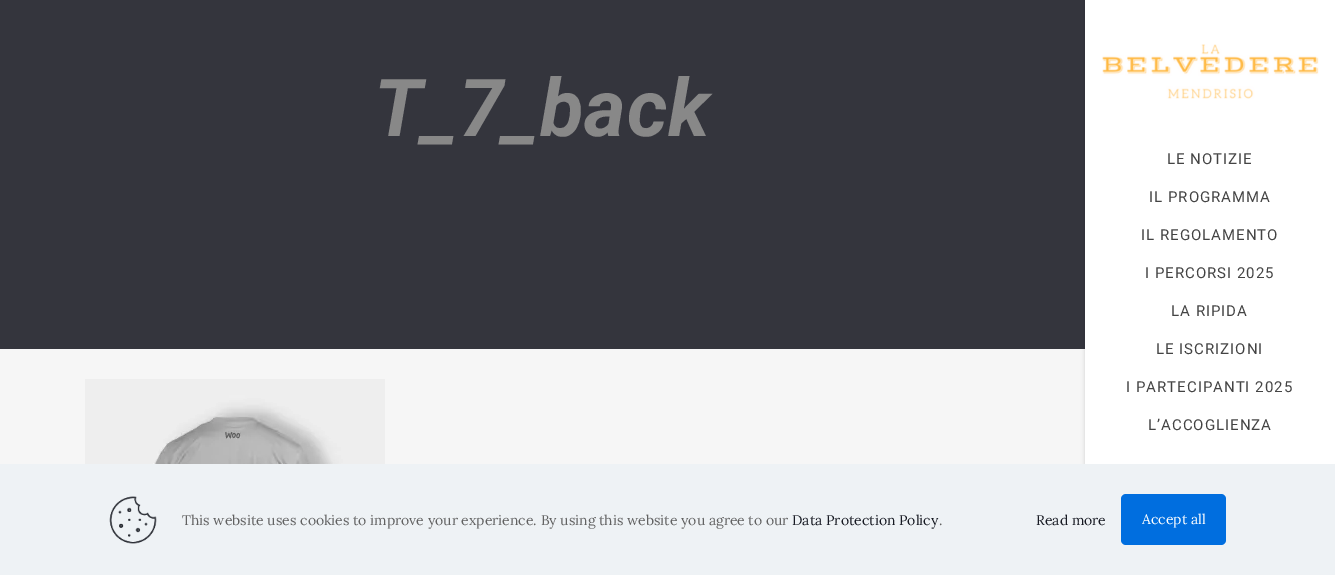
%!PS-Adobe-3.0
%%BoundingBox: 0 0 1335 575
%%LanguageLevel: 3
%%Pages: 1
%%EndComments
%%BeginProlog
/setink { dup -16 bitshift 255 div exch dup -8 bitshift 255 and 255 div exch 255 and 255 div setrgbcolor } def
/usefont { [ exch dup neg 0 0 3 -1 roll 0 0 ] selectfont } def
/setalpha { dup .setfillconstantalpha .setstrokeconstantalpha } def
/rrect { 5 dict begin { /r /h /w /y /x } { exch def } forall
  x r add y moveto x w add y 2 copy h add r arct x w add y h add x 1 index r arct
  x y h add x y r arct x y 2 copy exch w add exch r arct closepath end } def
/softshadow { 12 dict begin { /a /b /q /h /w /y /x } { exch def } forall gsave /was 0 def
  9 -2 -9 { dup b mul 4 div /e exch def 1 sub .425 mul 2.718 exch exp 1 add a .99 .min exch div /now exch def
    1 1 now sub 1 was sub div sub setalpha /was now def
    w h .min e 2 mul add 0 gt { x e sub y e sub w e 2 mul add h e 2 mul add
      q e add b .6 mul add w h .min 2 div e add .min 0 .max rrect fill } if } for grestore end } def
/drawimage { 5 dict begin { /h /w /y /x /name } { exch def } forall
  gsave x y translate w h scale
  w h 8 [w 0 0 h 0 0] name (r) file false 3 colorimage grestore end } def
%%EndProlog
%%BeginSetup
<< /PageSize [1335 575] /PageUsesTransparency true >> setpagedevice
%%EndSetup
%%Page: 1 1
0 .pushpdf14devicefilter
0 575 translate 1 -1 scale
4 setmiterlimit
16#F6F6F6 setink
0 0 1335 575 rectfill
16#34353D setink
0 0 1085 349 rectfill
/Roboto-BoldItalic 80 usefont
16#888888 setink
374 136 moveto 1 0 (T_7_back) ashow
(img1.raw) 85 379 300 85 drawimage
16#000000 setink
1085 -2 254 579 0 2 0.15 softshadow
16#FFFFFF setink
1085 0 250 464 rectfill
(img2.raw) 1102 44 217 55 drawimage
/Roboto-Regular 15 usefont
16#444444 setink
1167 164 moveto 1 0 (LE NOTIZIE) ashow
1149 202 moveto 1 0 (IL PROGRAMMA) ashow
1141 240 moveto 1 0 (IL REGOLAMENTO) ashow
1145 278 moveto 1 0 (I PERCORSI 2025) ashow
1171 316 moveto 1 0 (LA RIPIDA) ashow
1156 354 moveto 1 0 (LE ISCRIZIONI) ashow
1126 392 moveto 1 0 (I PARTECIPANTI 2025) ashow
1148 430 moveto 1 0 (L’ACCOGLIENZA) ashow
16#EEF2F5 setink
0 464 1335 111 rectfill
(img3.raw) 109 496 48 48 drawimage
/Lora-Regular 14 usefont
16#626262 setink
182 525 moveto (This website uses cookies to improve your experience. By using this website you agree to our) show
16#161922 setink
792 525 moveto (Data Protection Policy) show
16#626262 setink
939 525 moveto (.) show
16#161922 setink
1036 525 moveto (Read more) show
16#006EDF setink
1121 494 105 51 5 rrect fill
16#FFFFFF setink
1142 524 moveto (Accept all) show
.poppdf14devicefilter showpage
%%EOF
